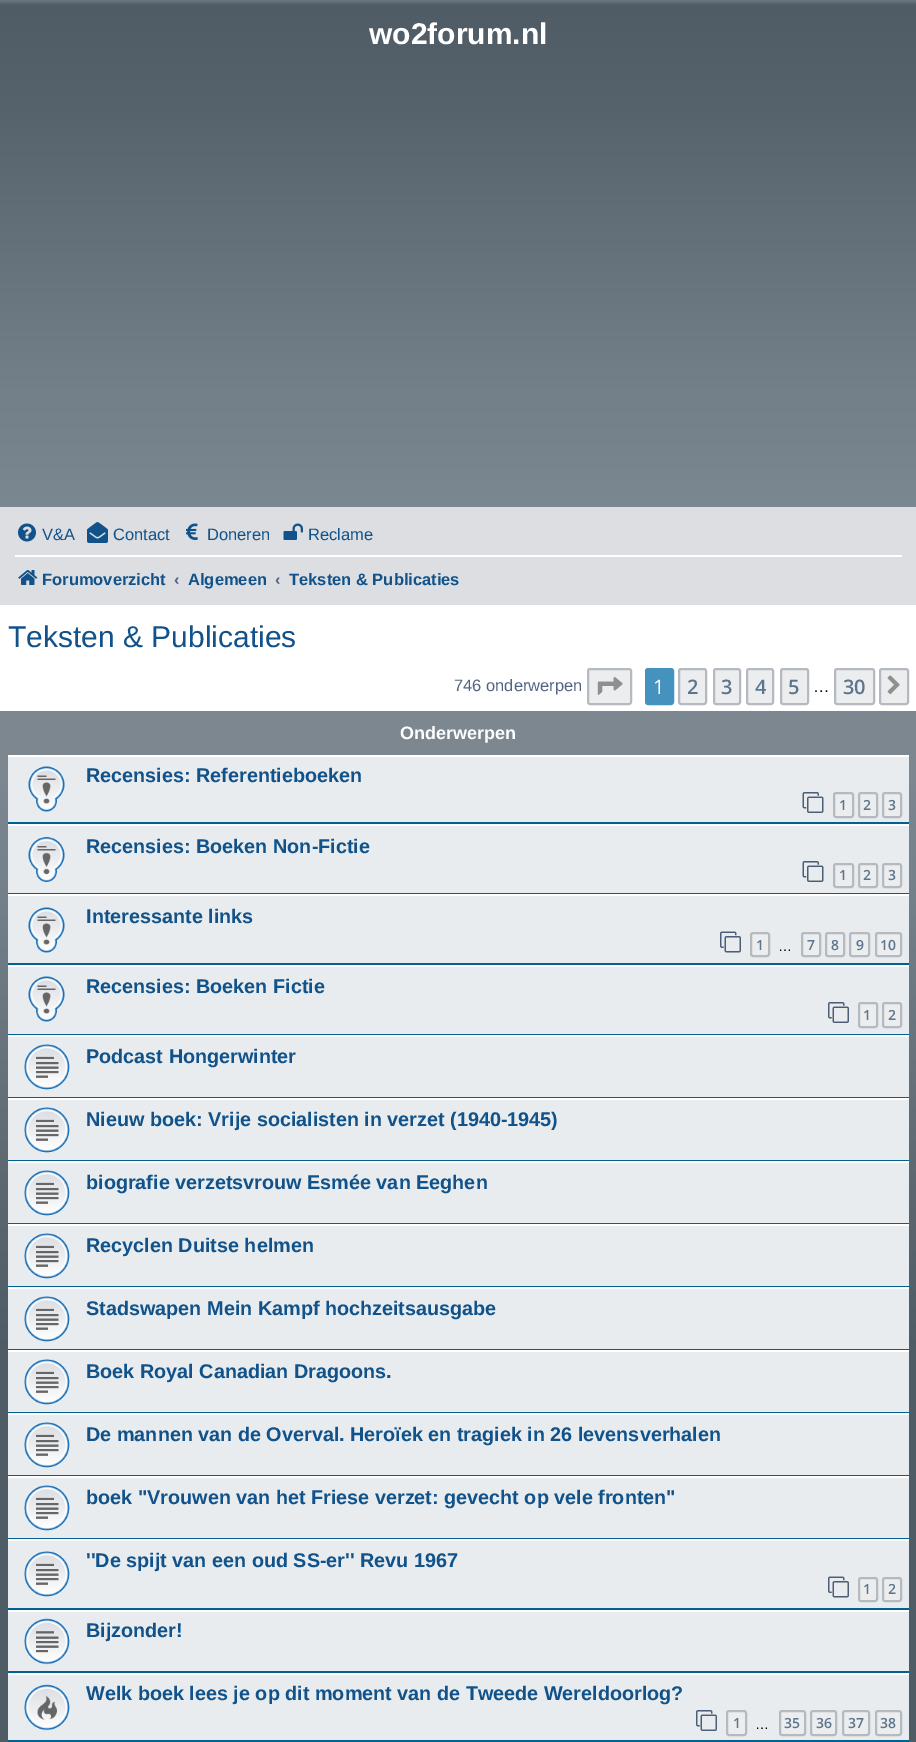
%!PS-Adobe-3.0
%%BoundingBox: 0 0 916 1742
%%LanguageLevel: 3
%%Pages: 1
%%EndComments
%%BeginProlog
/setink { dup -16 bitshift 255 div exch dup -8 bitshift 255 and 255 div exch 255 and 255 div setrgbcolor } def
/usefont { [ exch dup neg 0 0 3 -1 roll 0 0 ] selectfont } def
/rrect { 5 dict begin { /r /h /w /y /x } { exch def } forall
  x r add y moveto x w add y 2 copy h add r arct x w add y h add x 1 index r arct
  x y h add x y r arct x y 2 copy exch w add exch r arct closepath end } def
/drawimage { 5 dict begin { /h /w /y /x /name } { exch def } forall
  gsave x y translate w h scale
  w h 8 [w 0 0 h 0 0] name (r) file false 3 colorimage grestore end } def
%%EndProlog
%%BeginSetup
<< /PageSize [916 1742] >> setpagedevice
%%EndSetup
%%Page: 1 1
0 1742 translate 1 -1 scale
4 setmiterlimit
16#FFFFFF setink
0 0 916 1742 rectfill
gsave 0 0 moveto 916 0 lineto 916 507 lineto 0 507 lineto closepath clip newpath
<< /ShadingType 2 /ColorSpace /DeviceRGB /Coords [458 0 458 509] /Extend [true true] /Function << /FunctionType 3 /Domain [0 1] /Functions [<< /FunctionType 2 /Domain [0 1] /C0 [0.431 0.467 0.498] /C1 [0.314 0.361 0.396] /N 1 >> << /FunctionType 2 /Domain [0 1] /C0 [0.314 0.361 0.396] /C1 [0.337 0.384 0.42] /N 1 >> << /FunctionType 2 /Domain [0 1] /C0 [0.337 0.384 0.42] /C1 [0.451 0.498 0.533] /N 1 >> << /FunctionType 2 /Domain [0 1] /C0 [0.451 0.498 0.533] /C1 [0.486 0.533 0.569] /N 1 >>] /Bounds [0.01 0.2 0.75] /Encode [0 1 0 1 0 1 0 1] >> >> shfill grestore
/LiberationSans-Bold 30 usefont
369 44 moveto (wo2forum.nl) show
16#DCDEE2 setink
0 507 916 98 rectfill
(img1.raw) 18 523 18 19 drawimage
/LiberationSans-Regular 16.5 usefont
16#105289 setink
42 540 moveto (V&A) show
(img2.raw) 87 522 21 21 drawimage
113 540 moveto (Contact) show
(img3.raw) 186 523 12 17 drawimage
207 540 moveto (Doneren) show
(img4.raw) 283 523 20 17 drawimage
308 540 moveto (Reclame) show
16#FFFFFF setink
15 555 887 2 rectfill
(img5.raw) 18 570 20 15 drawimage
/LiberationSans-Bold 16.5 usefont
16#105289 setink
42 585 moveto (Forumoverzicht) show
16#536482 setink
174 585 moveto (‹) show
16#105289 setink
188 585 moveto (Algemeen) show
16#536482 setink
275 585 moveto (‹) show
16#105289 setink
289 585 moveto (Teksten & Publicaties) show
/LiberationSans-Regular 30 usefont
8 647 moveto (Teksten & Publicaties) show
/LiberationSans-Regular 16.5 usefont
16#536482 setink
454 691 moveto (746 onderwerpen) show
16#ECEDEE setink
588 669 43 35 2 rrect gsave fill grestore
16#B4BAC0 setink
2 setlinewidth
stroke
(img6.raw) 597 677 26 18 drawimage
16#4692BF setink
646 669 27 35 2 rrect gsave fill grestore
stroke
/OpenSans-Regular 20 usefont
16#FFFFFF setink
653 694 moveto (1) show
16#ECEDEE setink
679 669 27 35 2 rrect gsave fill grestore
16#B4BAC0 setink
stroke
/OpenSans-SemiBold 20 usefont
16#5C758C setink
687 694 moveto (2) show
16#ECEDEE setink
714 669 26 35 2 rrect gsave fill grestore
16#B4BAC0 setink
stroke
16#5C758C setink
721 694 moveto (3) show
16#ECEDEE setink
747 669 26 35 2 rrect gsave fill grestore
16#B4BAC0 setink
stroke
16#5C758C setink
755 694 moveto (4) show
16#ECEDEE setink
781 669 27 35 2 rrect gsave fill grestore
16#B4BAC0 setink
stroke
16#5C758C setink
788 694 moveto (5) show
/LiberationSans-Regular 16.5 usefont
16#000000 setink
813 692 moveto (…) show
16#ECEDEE setink
835 669 39 35 2 rrect gsave fill grestore
16#B4BAC0 setink
stroke
/OpenSans-SemiBold 20 usefont
16#5C758C setink
843 694 moveto (30) show
16#ECEDEE setink
880 669 28 35 2 rrect gsave fill grestore
16#B4BAC0 setink
stroke
(img7.raw) 887 675 13 20 drawimage
gsave 0 711 moveto 916 711 lineto 916 1742 lineto 0 1742 lineto closepath clip newpath
<< /ShadingType 2 /ColorSpace /DeviceRGB /Coords [458 711 458 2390] /Extend [true true] /Function << /FunctionType 3 /Domain [0 1] /Functions [<< /FunctionType 2 /Domain [0 1] /C0 [0.486 0.533 0.569] /C1 [0.486 0.529 0.565] /N 1 >> << /FunctionType 2 /Domain [0 1] /C0 [0.486 0.529 0.565] /C1 [0.463 0.51 0.545] /N 1 >> << /FunctionType 2 /Domain [0 1] /C0 [0.463 0.51 0.545] /C1 [0.357 0.4 0.435] /N 1 >> << /FunctionType 2 /Domain [0 1] /C0 [0.357 0.4 0.435] /C1 [0.314 0.361 0.396] /N 1 >> << /FunctionType 2 /Domain [0 1] /C0 [0.314 0.361 0.396] /C1 [0.314 0.361 0.396] /N 1 >>] /Bounds [0.04 0.1 0.29 0.38] /Encode [0 1 0 1 0 1 0 1 0 1] >> >> shfill grestore
/LiberationSans-Bold 18 usefont
16#FFFFFF setink
400 739 moveto (Onderwerpen) show
[
    [8 757 901 65 16#E8ECEE]
    [8 755 901 2 16#FFFFFF]
    [8 822 901 2 16#00608F]
] { aload pop setink rectfill } forall
(img8.raw) 28 766 37 46 drawimage
/LiberationSans-Bold 19.8 usefont
16#105289 setink
86 782 moveto (Recensies: Referentieboeken) show
(img9.raw) 802 792 22 21 drawimage
16#ECEDEE setink
834 793 19 24 2 rrect gsave fill grestore
16#B4BAC0 setink
stroke
/OpenSans-SemiBold 14 usefont
16#5C758C setink
839 810 moveto (1) show
16#ECEDEE setink
859 793 18 24 2 rrect gsave fill grestore
16#B4BAC0 setink
stroke
16#5C758C setink
863 810 moveto (2) show
16#ECEDEE setink
883 793 18 24 2 rrect gsave fill grestore
16#B4BAC0 setink
stroke
16#5C758C setink
888 810 moveto (3) show
[
    [8 826 901 67 16#E8ECEE]
    [8 824 901 2 16#FFFFFF]
    [8 893 901 1 16#00608F]
] { aload pop setink rectfill } forall
(img10.raw) 28 837 37 45 drawimage
/LiberationSans-Bold 19.8 usefont
16#105289 setink
86 853 moveto (Recensies: Boeken Non-Fictie) show
(img9.raw) 802 861 22 21 drawimage
16#ECEDEE setink
834 864 19 23 2 rrect gsave fill grestore
16#B4BAC0 setink
stroke
/OpenSans-SemiBold 14 usefont
16#5C758C setink
839 880 moveto (1) show
16#ECEDEE setink
859 864 18 23 2 rrect gsave fill grestore
16#B4BAC0 setink
stroke
16#5C758C setink
863 880 moveto (2) show
16#ECEDEE setink
883 864 18 23 2 rrect gsave fill grestore
16#B4BAC0 setink
stroke
16#5C758C setink
888 880 moveto (3) show
[
    [8 896 901 67 16#E8ECEE]
    [8 894 901 2 16#FFFFFF]
    [8 963 901 2 16#00608F]
] { aload pop setink rectfill } forall
(img8.raw) 28 907 37 46 drawimage
/LiberationSans-Bold 19.8 usefont
16#105289 setink
86 923 moveto (Interessante links) show
(img11.raw) 720 931 21 22 drawimage
16#ECEDEE setink
751 933 18 23 2 rrect gsave fill grestore
16#B4BAC0 setink
stroke
/OpenSans-SemiBold 14 usefont
16#5C758C setink
756 950 moveto (1) show
/LiberationSans-Regular 14 usefont
16#000000 setink
778 951 moveto (…) show
16#ECEDEE setink
802 933 18 23 2 rrect gsave fill grestore
16#B4BAC0 setink
stroke
/OpenSans-SemiBold 14 usefont
16#5C758C setink
807 950 moveto (7) show
16#ECEDEE setink
826 933 18 23 2 rrect gsave fill grestore
16#B4BAC0 setink
stroke
16#5C758C setink
831 950 moveto (8) show
16#ECEDEE setink
850 933 19 23 2 rrect gsave fill grestore
16#B4BAC0 setink
stroke
16#5C758C setink
856 950 moveto (9) show
16#ECEDEE setink
876 933 25 23 2 rrect gsave fill grestore
16#B4BAC0 setink
stroke
16#5C758C setink
880 950 moveto (10) show
[
    [8 967 901 67 16#E8ECEE]
    [8 965 901 2 16#FFFFFF]
    [8 1034 901 1 16#00608F]
] { aload pop setink rectfill } forall
(img8.raw) 28 976 37 46 drawimage
/LiberationSans-Bold 19.8 usefont
16#105289 setink
86 993 moveto (Recensies: Boeken Fictie) show
(img12.raw) 828 1002 21 21 drawimage
16#ECEDEE setink
859 1003 18 24 2 rrect gsave fill grestore
16#B4BAC0 setink
stroke
/OpenSans-SemiBold 14 usefont
16#5C758C setink
863 1020 moveto (1) show
16#ECEDEE setink
883 1003 18 24 2 rrect gsave fill grestore
16#B4BAC0 setink
stroke
16#5C758C setink
888 1020 moveto (2) show
[
    [8 1037 901 60 16#E8ECEE]
    [8 1035 901 2 16#FFFFFF]
    [8 1097 901 1 16#00608F]
] { aload pop setink rectfill } forall
(img13.raw) 24 1044 46 46 drawimage
/LiberationSans-Bold 19.8 usefont
16#105289 setink
86 1063 moveto (Podcast Hongerwinter) show
[
    [8 1100 901 60 16#E8ECEE]
    [8 1098 901 2 16#FFFFFF]
    [8 1160 901 1 16#00608F]
] { aload pop setink rectfill } forall
(img13.raw) 24 1107 46 46 drawimage
16#105289 setink
86 1126 moveto (Nieuw boek: Vrije socialisten in verzet \(1940-1945\)) show
[
    [8 1163 901 60 16#E8ECEE]
    [8 1161 901 2 16#FFFFFF]
    [8 1223 901 1 16#00608F]
] { aload pop setink rectfill } forall
(img13.raw) 24 1170 46 46 drawimage
16#105289 setink
86 1189 moveto (biografie verzetsvrouw Esmée van Eeghen) show
[
    [8 1226 901 60 16#E8ECEE]
    [8 1224 901 2 16#FFFFFF]
    [8 1286 901 1 16#00608F]
] { aload pop setink rectfill } forall
(img13.raw) 24 1233 46 46 drawimage
16#105289 setink
86 1252 moveto (Recyclen Duitse helmen) show
[
    [8 1289 901 60 16#E8ECEE]
    [8 1287 901 2 16#FFFFFF]
    [8 1349 901 1 16#00608F]
] { aload pop setink rectfill } forall
(img13.raw) 24 1296 46 46 drawimage
16#105289 setink
86 1315 moveto (Stadswapen Mein Kampf hochzeitsausgabe) show
[
    [8 1352 901 60 16#E8ECEE]
    [8 1350 901 2 16#FFFFFF]
    [8 1412 901 1 16#00608F]
] { aload pop setink rectfill } forall
(img13.raw) 24 1359 46 46 drawimage
16#105289 setink
86 1378 moveto (Boek Royal Canadian Dragoons.) show
[
    [8 1415 901 60 16#E8ECEE]
    [8 1413 901 2 16#FFFFFF]
    [8 1475 901 1 16#00608F]
] { aload pop setink rectfill } forall
(img13.raw) 24 1422 46 46 drawimage
16#105289 setink
86 1441 moveto (De mannen van de Overval. Heroïek en tragiek in 26 levensverhalen) show
[
    [8 1478 901 60 16#E8ECEE]
    [8 1476 901 2 16#FFFFFF]
    [8 1538 901 1 16#00608F]
] { aload pop setink rectfill } forall
(img13.raw) 24 1485 46 46 drawimage
16#105289 setink
86 1504 moveto (boek "Vrouwen van het Friese verzet: gevecht op vele fronten") show
[
    [8 1541 901 67 16#E8ECEE]
    [8 1539 901 2 16#FFFFFF]
    [8 1608 901 2 16#00608F]
] { aload pop setink rectfill } forall
(img13.raw) 24 1551 46 46 drawimage
16#105289 setink
86 1567 moveto (''De spijt van een oud SS-er'' Revu 1967) show
(img11.raw) 828 1576 21 22 drawimage
16#ECEDEE setink
859 1578 18 23 2 rrect gsave fill grestore
16#B4BAC0 setink
stroke
/OpenSans-SemiBold 14 usefont
16#5C758C setink
863 1594 moveto (1) show
16#ECEDEE setink
883 1578 18 23 2 rrect gsave fill grestore
16#B4BAC0 setink
stroke
16#5C758C setink
888 1594 moveto (2) show
[
    [8 1612 901 59 16#E8ECEE]
    [8 1610 901 2 16#FFFFFF]
    [8 1671 901 2 16#00608F]
] { aload pop setink rectfill } forall
(img14.raw) 24 1618 46 47 drawimage
/LiberationSans-Bold 19.8 usefont
16#105289 setink
86 1637 moveto (Bijzonder!) show
[
    [8 1675 901 65 16#E8ECEE]
    [8 1673 901 2 16#FFFFFF]
    [8 1740 901 2 16#00608F]
] { aload pop setink rectfill } forall
(img15.raw) 24 1684 46 47 drawimage
16#105289 setink
86 1700 moveto (Welk boek lees je op dit moment van de Tweede Wereldoorlog?) show
(img12.raw) 696 1710 21 21 drawimage
16#ECEDEE setink
727 1711 19 24 2 rrect gsave fill grestore
16#B4BAC0 setink
stroke
/OpenSans-SemiBold 14 usefont
16#5C758C setink
733 1728 moveto (1) show
/LiberationSans-Regular 14 usefont
16#000000 setink
755 1729 moveto (…) show
16#ECEDEE setink
780 1711 25 24 2 rrect gsave fill grestore
16#B4BAC0 setink
stroke
/OpenSans-SemiBold 14 usefont
16#5C758C setink
784 1728 moveto (35) show
16#ECEDEE setink
811 1711 25 24 2 rrect gsave fill grestore
16#B4BAC0 setink
stroke
16#5C758C setink
816 1728 moveto (36) show
16#ECEDEE setink
843 1711 26 24 2 rrect gsave fill grestore
16#B4BAC0 setink
stroke
16#5C758C setink
848 1728 moveto (37) show
16#ECEDEE setink
876 1711 25 24 2 rrect gsave fill grestore
16#B4BAC0 setink
stroke
16#5C758C setink
880 1728 moveto (38) show
showpage
%%EOF
